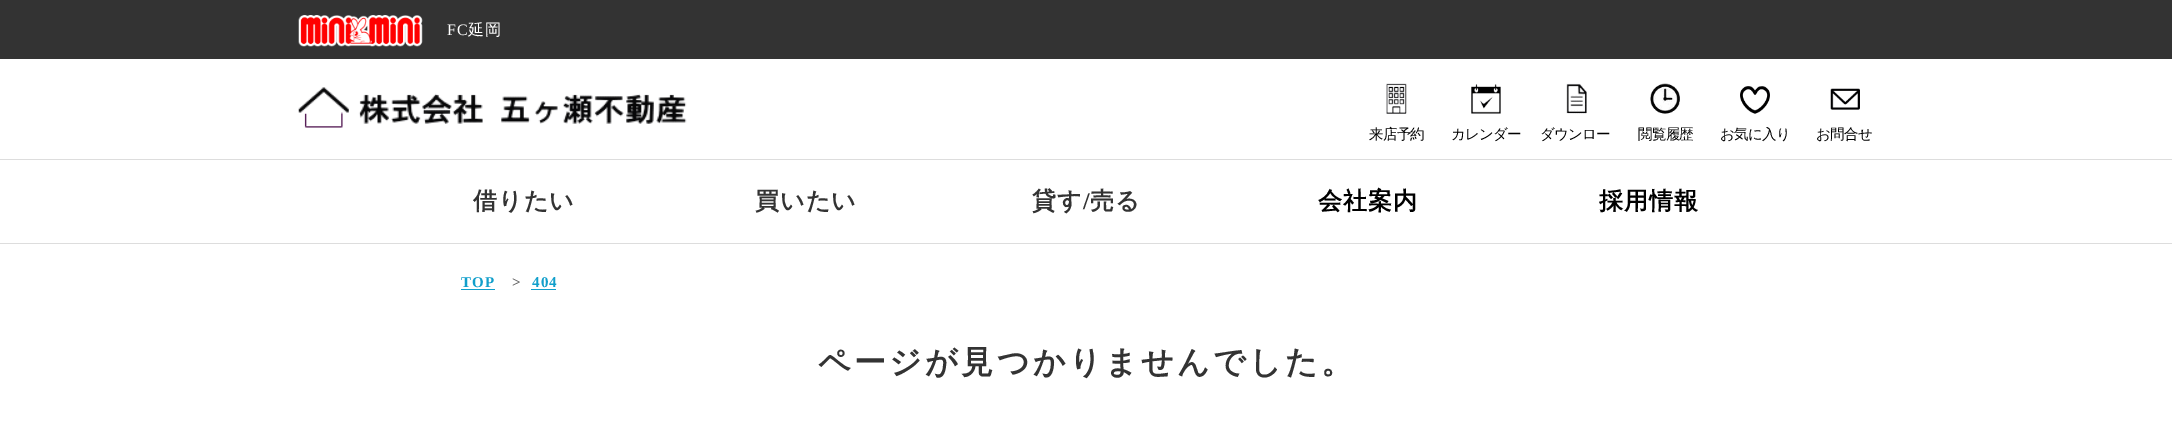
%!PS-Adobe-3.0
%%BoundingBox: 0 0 2172 427
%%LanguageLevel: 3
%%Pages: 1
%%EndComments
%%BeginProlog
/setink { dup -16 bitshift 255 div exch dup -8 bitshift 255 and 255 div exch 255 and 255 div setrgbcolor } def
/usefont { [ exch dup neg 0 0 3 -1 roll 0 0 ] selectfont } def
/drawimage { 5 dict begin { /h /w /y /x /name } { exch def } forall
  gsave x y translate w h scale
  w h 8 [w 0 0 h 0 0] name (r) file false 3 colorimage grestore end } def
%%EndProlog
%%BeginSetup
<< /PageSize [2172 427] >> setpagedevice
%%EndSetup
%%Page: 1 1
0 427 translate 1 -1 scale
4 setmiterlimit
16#FFFFFF setink
0 0 2172 427 rectfill
16#333333 setink
0 0 2172 59 rectfill
(img1.raw) 298 15 125 32 drawimage
/LiberationSerif-Regular 16 usefont
16#FFFFFF setink
447 35 moveto 1 0 (FC) ashow
/WenQuanYiZenHei-Medium 16 usefont
468 35 moveto 1 0 (延岡) ashow
(img2.raw) 298 87 389 41 drawimage
(img3.raw) 1386 83 21 31 drawimage
/WenQuanYiZenHei-Medium 14.5 usefont
16#000000 setink
1369 139 moveto -0.75 0 (来店予約) ashow
(img4.raw) 1471 84 30 30 drawimage
1451 139 moveto -0.75 0 (カレンダー) ashow
(img5.raw) 1566 83 21 31 drawimage
1540 139 moveto -0.75 0 (ダウンロー) ashow
(img6.raw) 1650 83 30 31 drawimage
1638 139 moveto -0.75 0 (閲覧履歴) ashow
(img7.raw) 1740 86 30 28 drawimage
1720 139 moveto -0.75 0 (お気に入り) ashow
(img8.raw) 1830 88 30 22 drawimage
1816 139 moveto -0.75 0 (お問合せ) ashow
16#DDDDDD setink
0 159 2172 1 rectfill
0 243 2172 1 rectfill
/WenQuanYiZenHei-Bold 24 usefont
16#333333 setink
473 209 moveto 1 0 (借りたい) ashow
755 209 moveto 1 0 (買いたい) ashow
1032 209 moveto 1 0 (貸す) ashow
/LiberationSerif-Bold 24 usefont
1083 209 moveto 1 0 (/) ashow
/WenQuanYiZenHei-Bold 24 usefont
1090 209 moveto 1 0 (売る) ashow
16#000000 setink
1318 209 moveto 1 0 (会社案内) ashow
1599 209 moveto 1 0 (採用情報) ashow
/LiberationSerif-Bold 15 usefont
16#119FCB setink
461 287 moveto 1 0 (TOP) ashow
461 289 34 1 rectfill
16#666666 setink
512 287 moveto 1 0 (>) ashow
16#119FCB setink
532 287 moveto 1 0 (404) ashow
531 289 25 1 rectfill
/WenQuanYiZenHei-Bold 32 usefont
16#333333 setink
818 373 moveto 3.25 0 (ページが見つかりませんでした。) ashow
showpage
%%EOF
